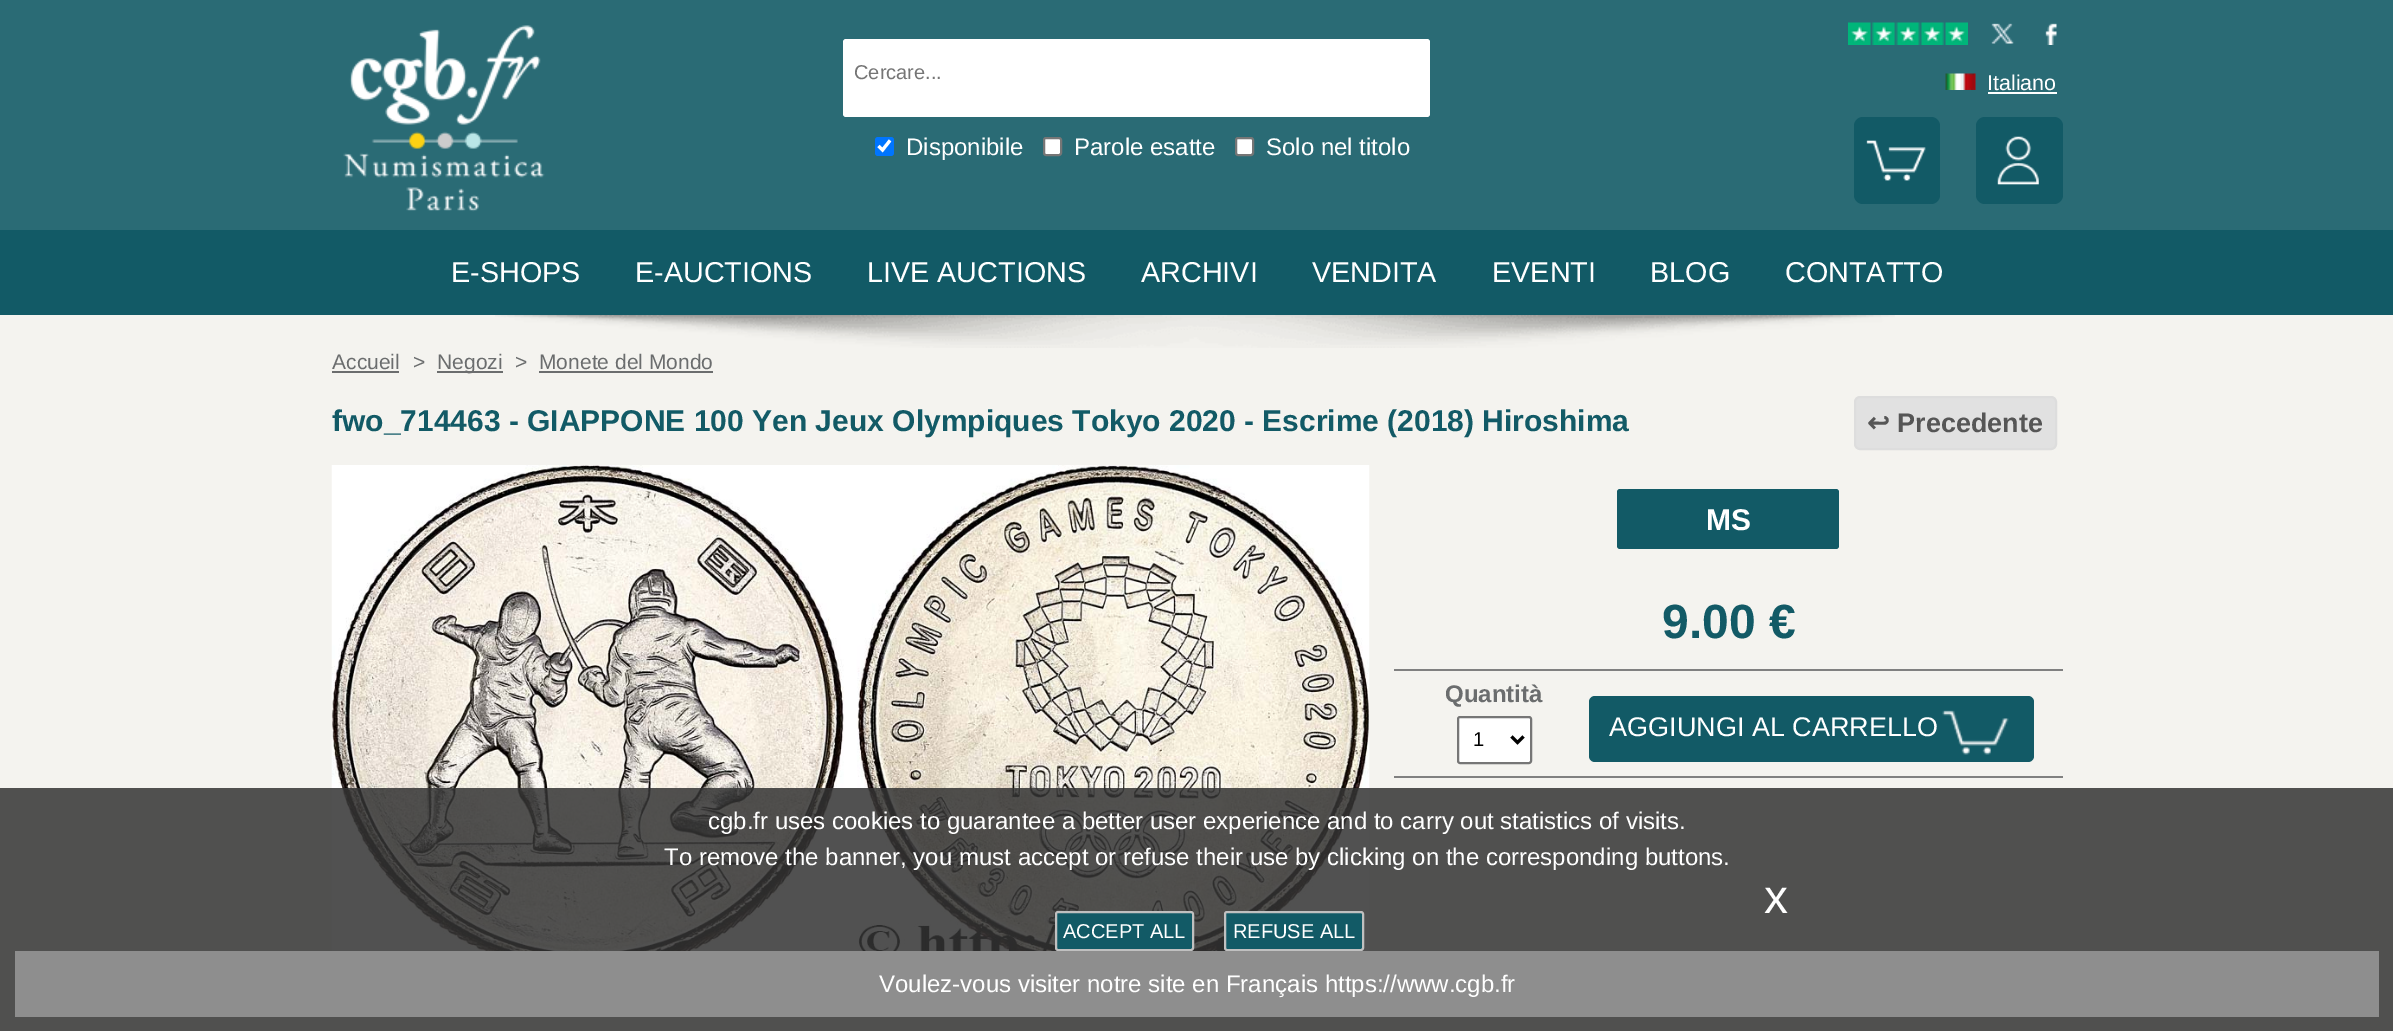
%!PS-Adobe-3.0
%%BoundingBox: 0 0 2393 1031
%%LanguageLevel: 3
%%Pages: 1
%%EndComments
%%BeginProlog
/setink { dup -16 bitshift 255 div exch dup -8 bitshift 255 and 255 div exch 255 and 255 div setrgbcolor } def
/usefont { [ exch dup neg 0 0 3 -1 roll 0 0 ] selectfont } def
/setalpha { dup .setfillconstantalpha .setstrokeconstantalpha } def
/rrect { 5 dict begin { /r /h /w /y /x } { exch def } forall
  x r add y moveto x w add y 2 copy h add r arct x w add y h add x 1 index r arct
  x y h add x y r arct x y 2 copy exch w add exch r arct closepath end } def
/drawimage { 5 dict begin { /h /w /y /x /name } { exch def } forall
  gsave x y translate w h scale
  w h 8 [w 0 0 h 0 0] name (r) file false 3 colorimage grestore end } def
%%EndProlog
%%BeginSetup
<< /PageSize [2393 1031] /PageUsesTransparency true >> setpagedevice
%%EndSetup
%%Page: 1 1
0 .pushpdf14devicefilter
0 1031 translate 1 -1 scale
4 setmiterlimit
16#2A6B75 setink
0 0 2393 1031 rectfill
(img1.raw) 343 25 202 187 drawimage
16#FFFFFF setink
843 39 587 78 3 rrect fill
/LiberationSans-Regular 20 usefont
16#757575 setink
854 79 moveto (Cercare...) show
16#0075FF setink
875 137 19 19 3 rrect fill
16#FFFFFF setink
3.1 setlinewidth
878.5 146 moveto 882.5 150 lineto 890 140.5 lineto stroke
/LiberationSans-Regular 24 usefont
906 155 moveto (Disponibile) show
1044 138 17 17 2 rrect gsave fill grestore
16#767676 setink
2 setlinewidth
stroke
16#FFFFFF setink
1074 155 moveto (Parole esatte) show
1236 138 17 17 2 rrect gsave fill grestore
16#767676 setink
stroke
16#FFFFFF setink
1266 155 moveto (Solo nel titolo) show
(img2.raw) 1848 22 120 23 drawimage
(img3.raw) 1991 23 23 21 drawimage
(img4.raw) 2045 23 12 22 drawimage
(img5.raw) 1945 73 31 17 drawimage
/LiberationSans-Regular 21.5 usefont
1987 90 moveto (Italiano) show
1988 92 69 2 rectfill
16#125A66 setink
1854 117 86 87 9 rrect fill
(img6.raw) 1866 140 60 41 drawimage
1976 117 87 87 9 rrect fill
(img7.raw) 1997 136 42 49 drawimage
0 230 2393 85 rectfill
/LiberationSans-Regular 28.75 usefont
16#FFFFFF setink
[
    [(E-SHOPS) 451 282]
    [(E-AUCTIONS) 635 282]
    [(LIVE AUCTIONS) 867 282]
    [(ARCHIVI) 1141 282]
    [(VENDITA) 1312 282]
    [(EVENTI) 1492 282]
    [(BLOG) 1650 282]
    [(CONTATTO) 1785 282]
] { aload pop moveto show } forall
16#F4F3EF setink
0 315 2393 716 rectfill
(img8.raw) 495 315 1400 33 drawimage
/LiberationSans-Regular 21 usefont
16#6B6D6E setink
332 369 moveto (Accueil) show
332 371 67 2 rectfill
413 369 moveto (>) show
437 371 66 2 rectfill
[
    [(Negozi) 437 369]
    [(>) 515 369]
    [(Monete del Mondo) 539 369]
] { aload pop moveto show } forall
539 371 174 2 rectfill
/LiberationSans-Bold 30 usefont
16#125A66 setink
332 431 moveto (fwo_714463 - GIAPPONE 100 Yen Jeux Olympiques Tokyo 2020 - Escrime \(2018\) Hiroshima) show
16#E1E1E1 setink
1855 397 201 52 5 rrect gsave fill grestore
16#DDDDDD setink
stroke
/DejaVuSans-Bold 27 usefont
16#565656 setink
1867 432 moveto (↩) show
/LiberationSans-Bold 27 usefont
1897 432 moveto (Precedente) show
(img9.raw) 331 465 1039 486 drawimage
16#125A66 setink
1617 489 222 60 3 rrect fill
/LiberationSans-Bold 30 usefont
16#FFFFFF setink
1706 530 moveto (MS) show
/LiberationSans-Bold 48 usefont
16#125A66 setink
1662 638 moveto (9.00 €) show
16#808080 setink
1394 669 669 2 rectfill
1394 776 669 2 rectfill
/LiberationSans-Bold 24 usefont
16#6B6D6E setink
1445 702 moveto (Quantità) show
16#FFFFFF setink
1458 717 73 46 2 rrect gsave fill grestore
16#767676 setink
stroke
16#000000 setink
3 setlinewidth
1511.5 736.5 moveto 1517.5 742.5 lineto 1523.5 736.5 lineto stroke
/LiberationSans-Regular 20 usefont
1473 746 moveto (1) show
16#125A66 setink
1589 696 445 66 6 rrect fill
/LiberationSans-Regular 27 usefont
16#FFFFFF setink
1609 736 moveto (AGGIUNGI AL CARRELLO) show
(img10.raw) 1942 710 67 45 drawimage
0.85 setalpha
16#333333 setink
0 788 2393 243 rectfill
/LiberationSans-Regular 24 usefont
1 setalpha
16#FFFFFF setink
708 829 moveto (cgb.fr uses cookies to guarantee a better user experience and to carry out statistics of visits.) show
664 865 moveto (To remove the banner, you must accept or refuse their use by clicking on the corresponding buttons.) show
/LiberationSans-Regular 48 usefont
1764 913 moveto (x) show
16#125A66 setink
1056 912 137 38 2 rrect gsave fill grestore
16#C0C0C0 setink
2 setlinewidth
stroke
/LiberationSans-Regular 20 usefont
16#FFFFFF setink
1063 938 moveto (ACCEPT ALL) show
16#125A66 setink
1225 912 138 38 2 rrect gsave fill grestore
16#C0C0C0 setink
stroke
16#FFFFFF setink
1233 938 moveto (REFUSE ALL) show
16#8E8E8E setink
15 951 2364 66 rectfill
/LiberationSans-Regular 24 usefont
16#FFFFFF setink
879 992 moveto (Voulez-vous visiter notre site en Français https://www.cgb.fr) show
.poppdf14devicefilter showpage
%%EOF
